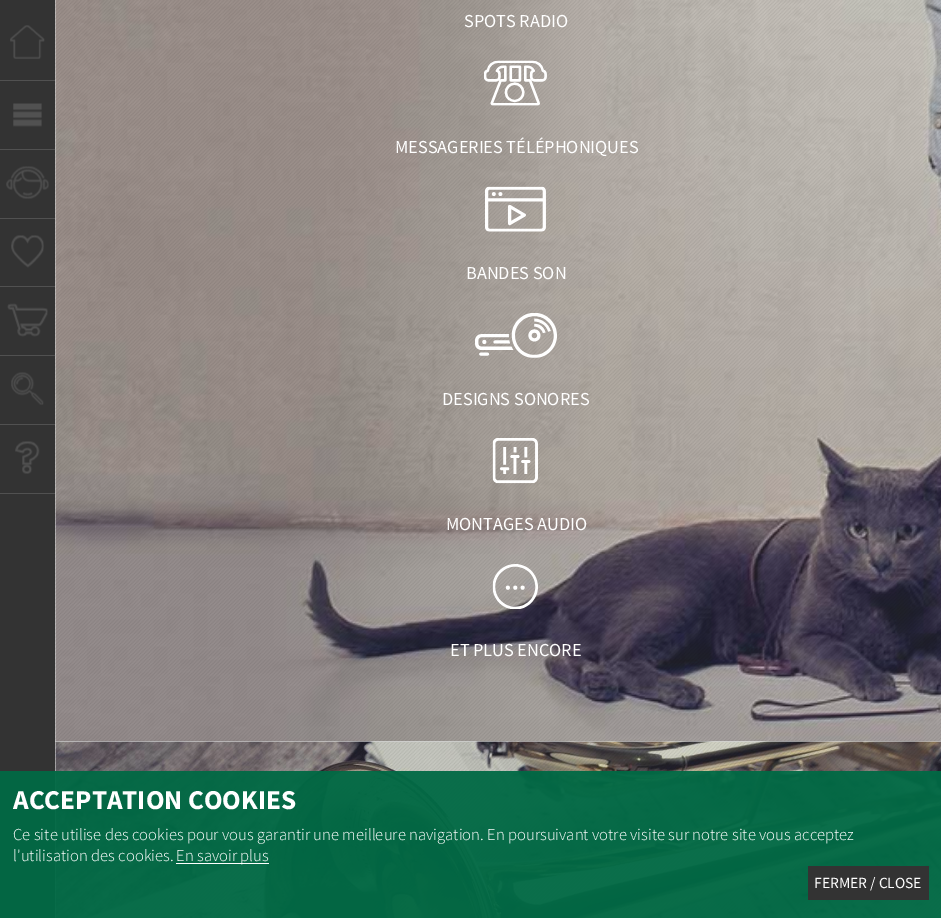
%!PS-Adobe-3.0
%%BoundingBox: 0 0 941 918
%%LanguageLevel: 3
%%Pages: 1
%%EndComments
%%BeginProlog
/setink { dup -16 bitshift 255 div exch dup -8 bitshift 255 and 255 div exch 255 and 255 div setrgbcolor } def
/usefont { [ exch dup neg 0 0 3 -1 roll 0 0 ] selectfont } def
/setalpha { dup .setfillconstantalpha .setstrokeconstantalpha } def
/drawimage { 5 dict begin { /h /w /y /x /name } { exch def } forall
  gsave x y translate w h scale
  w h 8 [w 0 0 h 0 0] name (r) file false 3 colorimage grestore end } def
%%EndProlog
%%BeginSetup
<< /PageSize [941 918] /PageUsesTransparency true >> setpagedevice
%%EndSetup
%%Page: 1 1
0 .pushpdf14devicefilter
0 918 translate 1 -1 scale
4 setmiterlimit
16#D1D1D1 setink
0 0 941 918 rectfill
16#333333 setink
0 0 55 918 rectfill
16#515151 setink
0 80 55 1 rectfill
(img1.raw) 10 25 35 34 drawimage
0 149 55 1 rectfill
(img2.raw) 13 103 29 24 drawimage
0 218 55 1 rectfill
(img3.raw) 6 166 43 33 drawimage
0 286 55 1 rectfill
(img4.raw) 11 235 33 33 drawimage
0 355 55 1 rectfill
(img5.raw) 7 303 41 34 drawimage
0 424 55 1 rectfill
(img6.raw) 11 372 33 33 drawimage
0 493 55 1 rectfill
(img7.raw) 15 441 25 33 drawimage
(img8.raw) 55 0 886 741 drawimage
(img9.raw) 55 0 886 741 drawimage
/SourceSansPro-Regular 18.25 usefont
16#FFFFFF setink
464 27 moveto (SPOTS RADIO) show
(img10.raw) 484 60 63 46 drawimage
395 153 moveto (MESSAGERIES TÉLÉPHONIQUES) show
(img11.raw) 485 186 61 46 drawimage
466 279 moveto (BANDES SON) show
(img12.raw) 475 313 82 45 drawimage
442 405 moveto (DESIGNS SONORES) show
(img13.raw) 492 438 46 46 drawimage
446 530 moveto (MONTAGES AUDIO) show
(img14.raw) 492 564 46 45 drawimage
450 656 moveto (ET PLUS ENCORE) show
(img15.raw) 55 741 886 177 drawimage
(img16.raw) 55 742 886 176 drawimage
0.95 setalpha
16#006944 setink
0 771 941 147 rectfill
/SourceSansPro-Bold 27.25 usefont
1 setalpha
16#FFFFFF setink
13 809 moveto (ACCEPTATION COOKIES) show
/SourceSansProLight-Light 16.65 usefont
13 840 moveto (Ce site utilise des cookies pour vous garantir une meilleure navigation. En poursuivant votre visite sur notre site vous acceptez) show
13 861 moveto (l'utilisation des cookies.) show
176 863 93 1 rectfill
176 861 moveto (En savoir plus) show
16#333333 setink
808 866 121 34 rectfill
/SourceSansPro-Regular 15.5 usefont
16#FFFFFF setink
814 888 moveto (FERMER / CLOSE) show
.poppdf14devicefilter showpage
%%EOF
